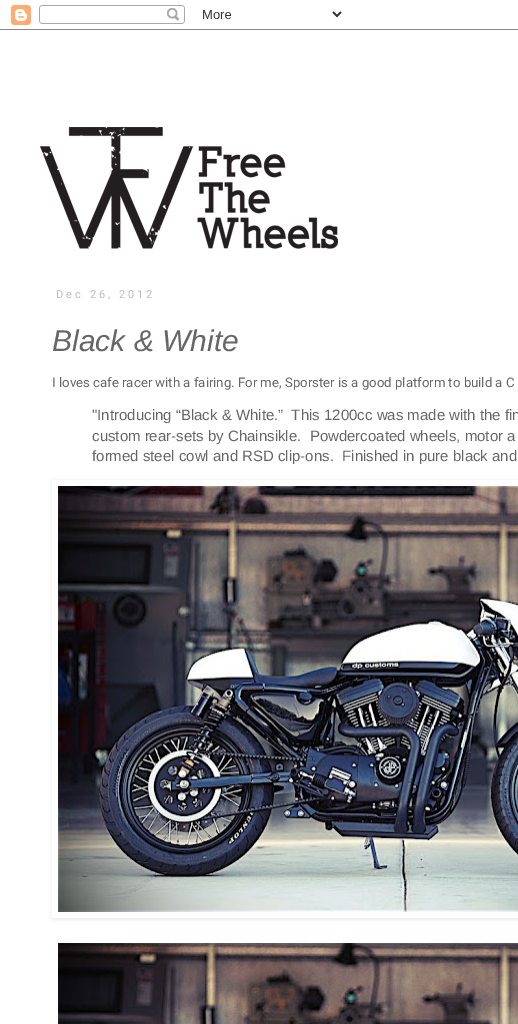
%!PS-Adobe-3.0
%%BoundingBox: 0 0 518 1024
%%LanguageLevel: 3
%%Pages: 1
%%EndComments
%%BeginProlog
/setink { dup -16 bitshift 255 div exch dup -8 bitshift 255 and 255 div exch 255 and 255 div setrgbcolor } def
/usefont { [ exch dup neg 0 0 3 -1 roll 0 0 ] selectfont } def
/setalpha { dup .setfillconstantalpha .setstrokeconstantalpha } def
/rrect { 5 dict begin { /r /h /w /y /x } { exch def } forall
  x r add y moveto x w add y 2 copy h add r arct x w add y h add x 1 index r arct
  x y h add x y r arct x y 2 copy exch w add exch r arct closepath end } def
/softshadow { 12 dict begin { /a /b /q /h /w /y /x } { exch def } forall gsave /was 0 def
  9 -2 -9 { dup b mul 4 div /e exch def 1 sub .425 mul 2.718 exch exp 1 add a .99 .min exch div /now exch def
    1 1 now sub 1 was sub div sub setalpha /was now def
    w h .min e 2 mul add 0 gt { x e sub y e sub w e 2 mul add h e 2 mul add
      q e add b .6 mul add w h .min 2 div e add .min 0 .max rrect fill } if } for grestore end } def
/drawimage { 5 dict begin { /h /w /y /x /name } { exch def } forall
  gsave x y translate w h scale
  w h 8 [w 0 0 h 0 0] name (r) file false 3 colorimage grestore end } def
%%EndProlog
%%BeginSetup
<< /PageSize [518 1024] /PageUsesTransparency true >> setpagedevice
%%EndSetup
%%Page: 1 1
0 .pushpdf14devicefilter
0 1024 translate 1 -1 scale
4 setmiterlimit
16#FFFFFF setink
0 0 518 1024 rectfill
(img1.raw) 0 5 518 25 drawimage
(img2.raw) 40 127 298 122 drawimage
/Roboto-Regular 11 usefont
16#BBBBBB setink
56 298 moveto 3 0 (Dec 26, 2012) ashow
/LiberationSans-Italic 30 usefont
16#666666 setink
52 351 moveto (Black & White) show
/Roboto-Regular 13.2 usefont
52 387 moveto (I loves cafe racer with a fairing. For me, Sporster is a good platform to build a C) show
/LiberationSans-Regular 15 usefont
[
    [("Introducing “Black & White.”  This 1200cc was made with the fin) 92 420]
    [(custom rear-sets by Chainsikle.  Powdercoated wheels, motor a) 92 441]
    [(formed steel cowl and RSD clip-ons.  Finished in pure black and) 92 461]
] { aload pop moveto show } forall
gsave
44 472 moveto 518 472 lineto 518 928 lineto 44 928 lineto closepath 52 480 moveto 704 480 lineto 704 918 lineto 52 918 lineto closepath eoclip newpath
16#000000 setink
53 481 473 438 0 2.5 0.1 softshadow
grestore
(img3.raw) 58 486 460 426 drawimage
(img4.raw) 58 943 460 81 drawimage
.poppdf14devicefilter showpage
%%EOF
